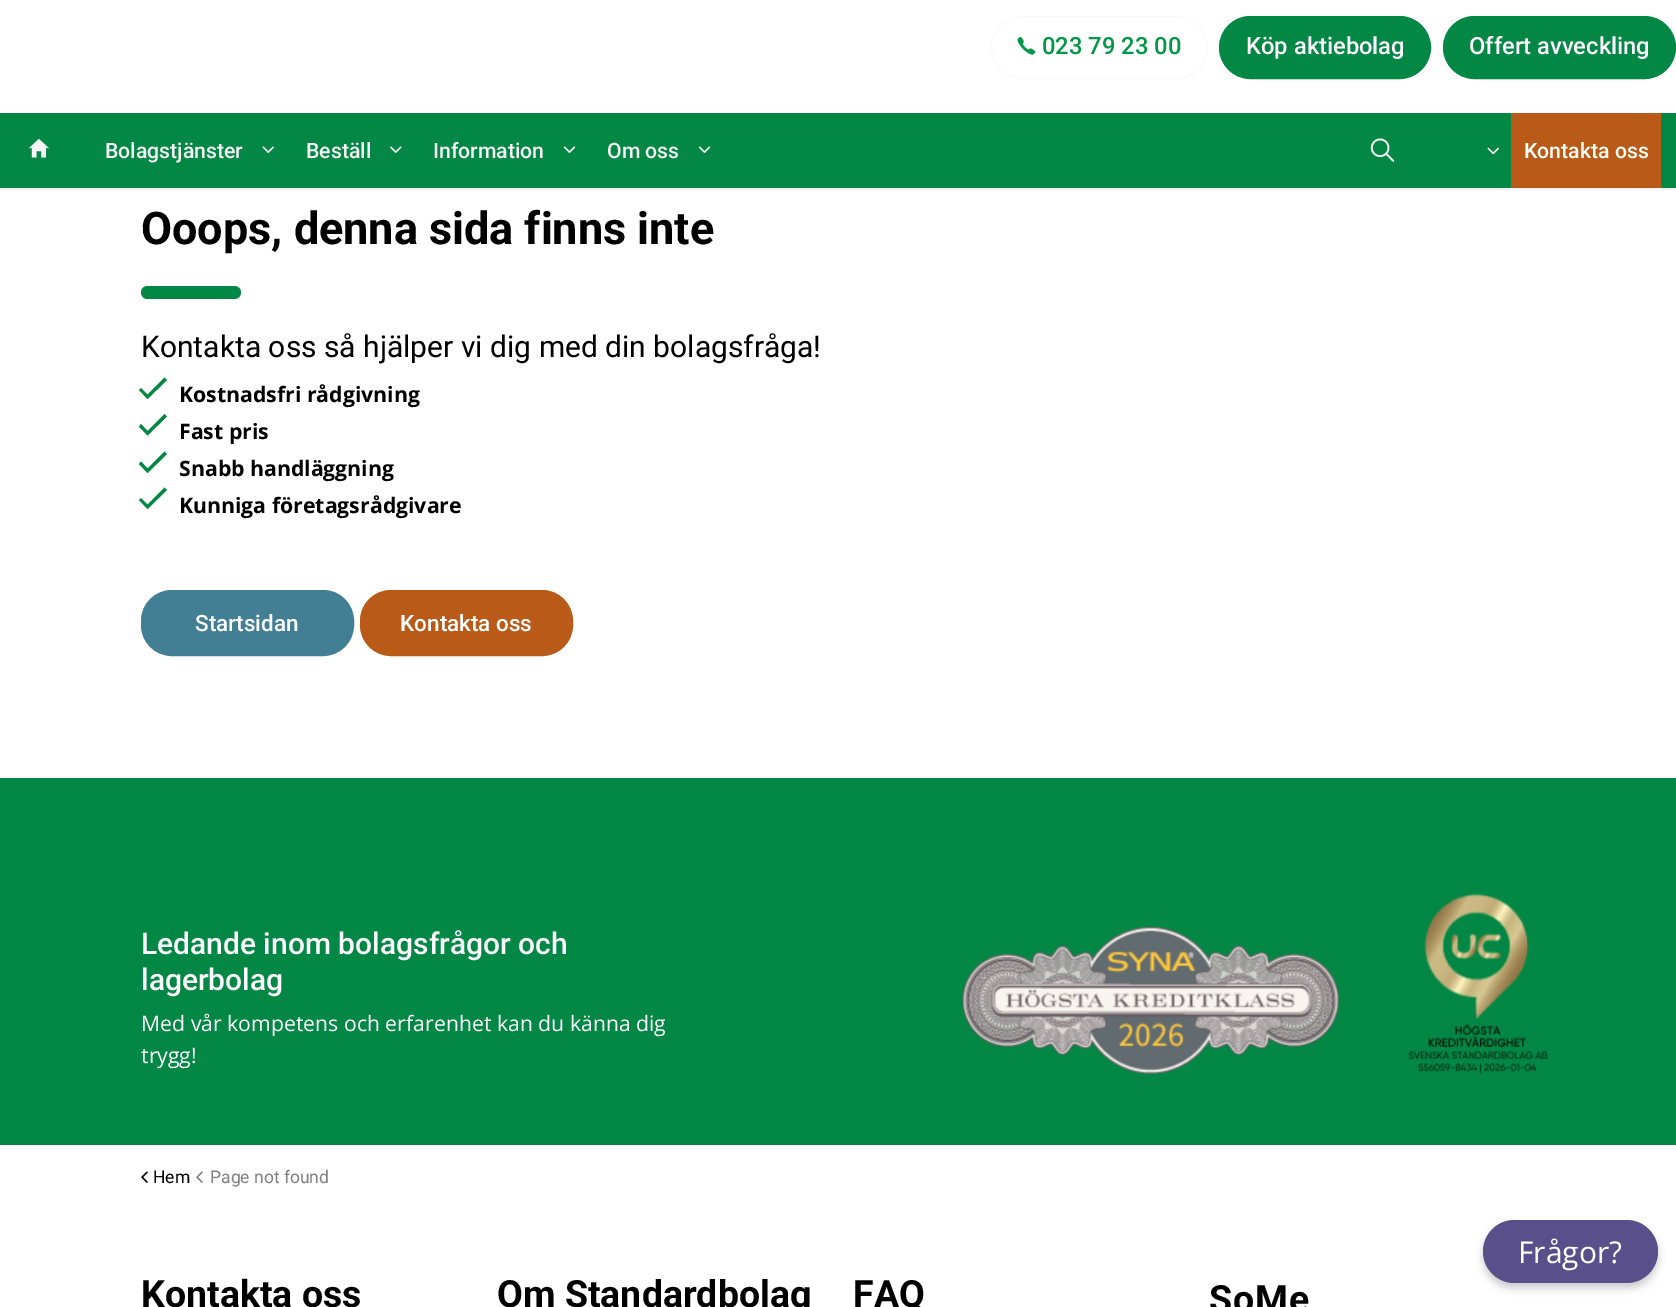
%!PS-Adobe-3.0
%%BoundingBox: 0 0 1676 1307
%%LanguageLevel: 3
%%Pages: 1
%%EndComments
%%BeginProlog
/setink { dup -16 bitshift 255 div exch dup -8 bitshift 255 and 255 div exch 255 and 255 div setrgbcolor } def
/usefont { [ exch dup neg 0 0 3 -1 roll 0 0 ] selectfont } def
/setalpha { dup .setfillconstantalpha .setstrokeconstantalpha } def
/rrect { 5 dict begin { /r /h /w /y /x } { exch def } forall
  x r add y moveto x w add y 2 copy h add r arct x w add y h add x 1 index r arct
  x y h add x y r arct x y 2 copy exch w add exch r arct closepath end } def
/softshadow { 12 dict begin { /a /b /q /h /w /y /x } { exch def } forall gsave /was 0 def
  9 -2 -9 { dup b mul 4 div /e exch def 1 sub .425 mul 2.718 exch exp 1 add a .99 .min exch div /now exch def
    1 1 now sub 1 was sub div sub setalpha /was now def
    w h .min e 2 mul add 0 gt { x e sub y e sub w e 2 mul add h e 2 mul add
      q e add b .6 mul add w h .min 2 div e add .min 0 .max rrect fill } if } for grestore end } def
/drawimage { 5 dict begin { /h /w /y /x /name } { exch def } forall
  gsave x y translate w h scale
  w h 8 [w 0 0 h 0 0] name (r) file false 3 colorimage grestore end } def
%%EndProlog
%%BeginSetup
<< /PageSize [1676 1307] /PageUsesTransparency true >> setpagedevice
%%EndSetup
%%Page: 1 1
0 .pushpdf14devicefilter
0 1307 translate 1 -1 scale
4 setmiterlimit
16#FFFFFF setink
0 0 1676 1307 rectfill
16#000000 setink
0 3 1676 187 0 1 0.05 softshadow
16#FFFFFF setink
0 2 1676 111 rectfill
16#F9F9F9 setink
991.5 16.5 216 62 31 rrect stroke
(img1.raw) 1017 36 19 19 drawimage
/Roboto-Medium 23.75 usefont
16#009844 setink
1042 54 moveto (023 79 23 00) show
16#038744 setink
1219.5 16.5 211 62 31 rrect gsave fill grestore
stroke
16#FFFFFF setink
1246 54 moveto (Köp aktiebolag) show
16#038744 setink
1443.5 16.5 232 62 31 rrect gsave fill grestore
stroke
16#FFFFFF setink
1469 54 moveto (Offert avveckling) show
16#038744 setink
0 113 1676 75 rectfill
(img2.raw) 28 138 21 20 drawimage
/Roboto-Medium 21.25 usefont
16#F6F6F6 setink
105 158 moveto (Bolagstjänster) show
(img3.raw) 262 146 12 7 drawimage
306 158 moveto (Beställ) show
(img4.raw) 390 146 12 7 drawimage
433 158 moveto (Information) show
(img5.raw) 563 146 13 7 drawimage
607 158 moveto (Om oss) show
(img5.raw) 698 146 13 7 drawimage
(img6.raw) 1370 138 25 24 drawimage
(img7.raw) 1487 147 12 8 drawimage
16#B95A18 setink
1511 113 150 75 rectfill
16#FEFFF8 setink
1524 158 moveto (Kontakta oss) show
/Roboto-Bold 45 usefont
16#000000 setink
141 244 moveto (Ooops, denna sida finns inte) show
16#038744 setink
141 286 100 13 6.5 rrect fill
/Roboto-Regular 30 usefont
16#000000 setink
141 357 moveto (Kontakta oss så hjälper vi dig med din bolagsfråga!) show
16#038744 setink
147.5 394.5 moveto 164.5 377.5 lineto 167 380 lineto 147.5 399 lineto 139 390 lineto 141 388 lineto closepath fill
/OpenSans-Bold 21.25 usefont
16#000000 setink
179 402 moveto (Kostnadsfri rådgivning) show
16#038744 setink
147.5 431 moveto 164.5 414 lineto 167 416.5 lineto 147.5 435.5 lineto 139 426.5 lineto 141 424 lineto closepath fill
16#000000 setink
179 439 moveto (Fast pris) show
16#038744 setink
147.5 468.5 moveto 164.5 451.5 lineto 167 454 lineto 147.5 473 lineto 139 464 lineto 141 461.5 lineto closepath fill
16#000000 setink
179 476 moveto (Snabb handläggning) show
16#038744 setink
147.5 504.5 moveto 164.5 487.5 lineto 167 490 lineto 147.5 509 lineto 139 500 lineto 141 498 lineto closepath fill
16#000000 setink
179 513 moveto (Kunniga företagsrådgivare) show
16#427E94 setink
141.5 590.5 212 65 30.5 rrect gsave fill grestore
stroke
/Roboto-Medium 22.5 usefont
16#FFFFFF setink
195 631 moveto (Startsidan) show
16#B95A18 setink
360.5 590.5 212 65 30.5 rrect gsave fill grestore
stroke
16#FFFFFF setink
400 631 moveto (Kontakta oss) show
16#038744 setink
0 778 1676 367 rectfill
/Roboto-Medium 30 usefont
16#FFFFFF setink
141 954 moveto (Ledande inom bolagsfrågor och) show
141 990 moveto (lagerbolag) show
/OpenSans-Regular 21.25 usefont
141 1031 moveto (Med vår kompetens och erfarenhet kan du känna dig) show
141 1063 moveto (trygg!) show
(img8.raw) 961 926 379 149 drawimage
(img9.raw) 1408 893 140 181 drawimage
(img10.raw) 141 1171 7 12 drawimage
/Roboto-Regular 17.5 usefont
16#000000 setink
153 1183 moveto (Hem) show
(img11.raw) 196 1171 7 12 drawimage
16#808080 setink
210 1183 moveto (Page not found) show
/Roboto-Bold 37.5 usefont
16#000000 setink
[
    [(Kontakta oss) 141 1307]
    [(Om Standardbolag) 497 1307]
    [(FAQ) 853 1307]
] { aload pop moveto show } forall
1209 1312 moveto 1 0 (SoMe) ashow
1483 1225 175 63 31.5 4 0.2 softshadow
16#59508B setink
1483 1220 175 63 31.5 rrect fill
/OpenSans-Regular 30 usefont
16#FFFFFF setink
1518 1263 moveto (Frågor?) show
.poppdf14devicefilter showpage
%%EOF
